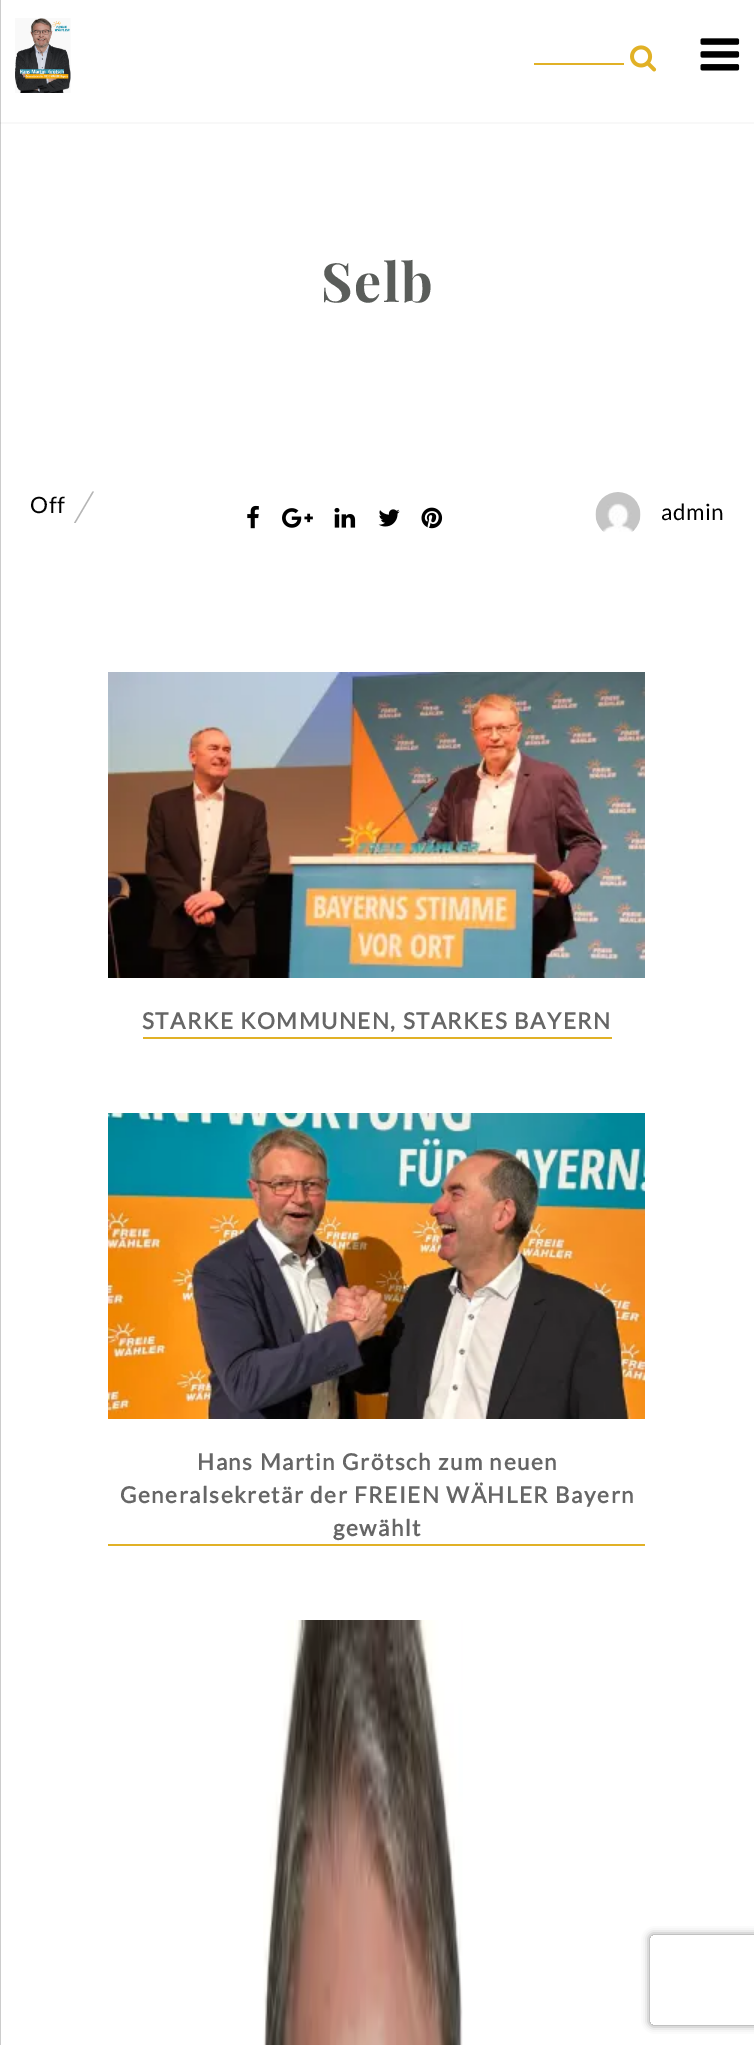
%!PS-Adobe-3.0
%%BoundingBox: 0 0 754 2045
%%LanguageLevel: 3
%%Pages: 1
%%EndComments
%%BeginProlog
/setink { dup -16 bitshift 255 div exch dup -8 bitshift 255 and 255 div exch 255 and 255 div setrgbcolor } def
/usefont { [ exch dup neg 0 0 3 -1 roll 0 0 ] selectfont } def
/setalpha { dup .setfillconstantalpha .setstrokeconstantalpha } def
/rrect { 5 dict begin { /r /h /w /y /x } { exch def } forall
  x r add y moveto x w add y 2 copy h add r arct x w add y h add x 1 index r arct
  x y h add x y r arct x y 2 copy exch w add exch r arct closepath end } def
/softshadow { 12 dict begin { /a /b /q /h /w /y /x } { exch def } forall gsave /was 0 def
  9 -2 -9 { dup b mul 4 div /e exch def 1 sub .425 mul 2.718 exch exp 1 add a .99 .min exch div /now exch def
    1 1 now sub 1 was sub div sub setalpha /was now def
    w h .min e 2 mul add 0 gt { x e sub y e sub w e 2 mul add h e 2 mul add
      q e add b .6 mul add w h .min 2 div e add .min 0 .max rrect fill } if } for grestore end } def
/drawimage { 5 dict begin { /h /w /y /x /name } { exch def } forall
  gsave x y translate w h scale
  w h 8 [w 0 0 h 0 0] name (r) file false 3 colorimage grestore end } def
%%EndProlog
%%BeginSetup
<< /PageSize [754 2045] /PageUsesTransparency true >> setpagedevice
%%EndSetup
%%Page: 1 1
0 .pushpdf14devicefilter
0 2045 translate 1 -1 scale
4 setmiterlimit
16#FFFFFF setink
0 0 754 2045 rectfill
[
    [0 0 1 2045 16#CCCCCC]
    [0 122 754 2 16#F8F8F8]
    [0 122 1 2 16#C6C6C6]
] { aload pop setink rectfill } forall
(img1.raw) 15 18 56 75 drawimage
16#E1B126 setink
534 63 90 2 rectfill
(img2.raw) 630 45 27 27 drawimage
(img3.raw) 700 38 40 33 drawimage
/PlayfairDisplay-Bold 54 usefont
16#5A5D5A setink
321 302 moveto 1.5 0 (Selb) ashow
/Lato-Regular 22.5 usefont
16#000000 setink
30 513 moveto 0.5 0 (Off) ashow
16#B5B5B5 setink
92.5 491.5 moveto 94 491.5 lineto 75.5 523 lineto 74 523 lineto closepath fill
(img4.raw) 247 505 12 24 drawimage
(img5.raw) 282 508 31 20 drawimage
(img6.raw) 334 507 22 21 drawimage
(img7.raw) 378 509 22 18 drawimage
(img8.raw) 421 507 22 22 drawimage
(img9.raw) 595 492 46 40 drawimage
/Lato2-Regular 22.5 usefont
16#000000 setink
661 520 moveto 0.5 0 (admin) ashow
(img10.raw) 108 672 537 306 drawimage
16#E1B126 setink
143 1037 469 2 rectfill
/Lato-Bold 22.5 usefont
16#666666 setink
142 1029 moveto 1.5 0 (STARKE KOMMUNEN, STARKES BAYERN) ashow
(img11.raw) 108 1113 537 306 drawimage
16#E1B126 setink
108 1544 537 2 rectfill
16#666666 setink
197 1470 moveto 1.5 0 (Hans Martin Grötsch zum neuen) ashow
120 1503 moveto 1.5 0 (Generalsekretär der FREIEN WÄHLER Bayern) ashow
333 1536 moveto 1.5 0 (gewählt) ashow
(img12.raw) 263 1620 200 425 drawimage
gsave
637 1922 moveto 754 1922 lineto 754 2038 lineto 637 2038 lineto closepath 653 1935 moveto 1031 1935 lineto 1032.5 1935 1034 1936.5 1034 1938 curveto 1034 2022 lineto 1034 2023.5 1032.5 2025 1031 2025 curveto 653 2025 lineto 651.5 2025 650 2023.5 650 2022 curveto 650 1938 lineto 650 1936.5 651.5 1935 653 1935 curveto closepath eoclip newpath
16#808080 setink
650 1935 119 90 3 4 1 softshadow
grestore
.poppdf14devicefilter showpage
%%EOF
